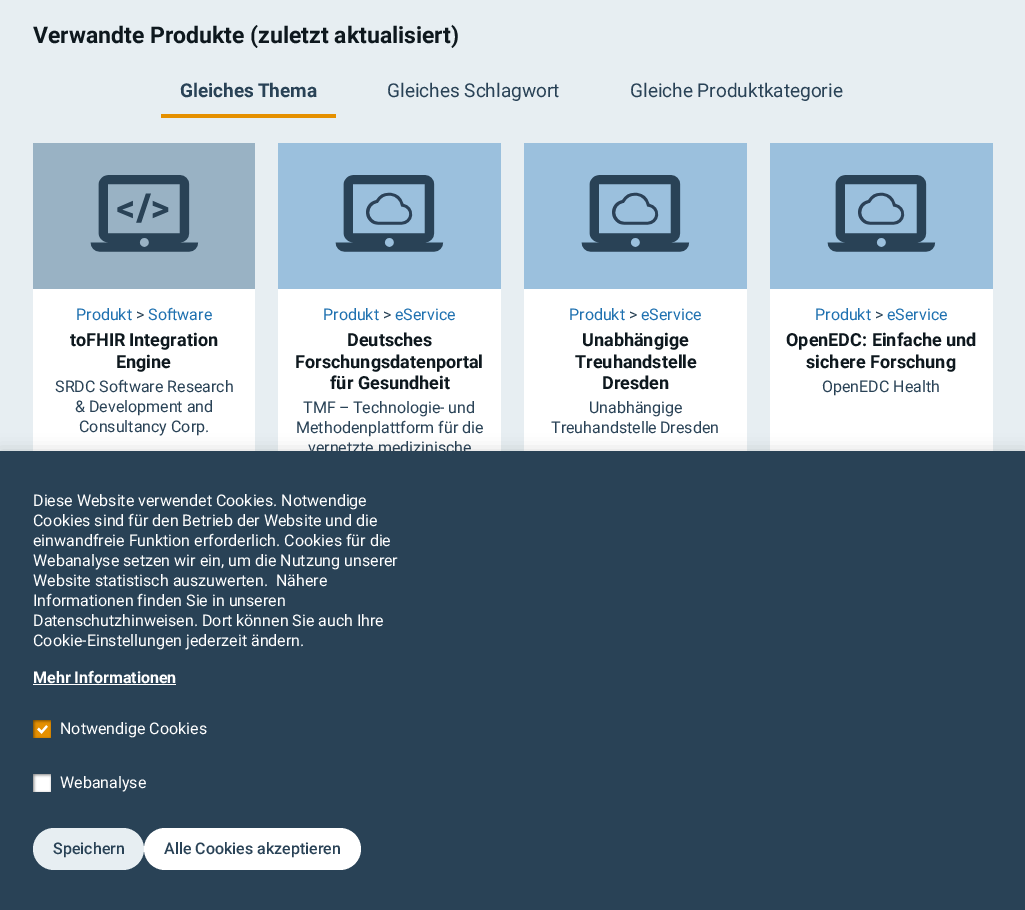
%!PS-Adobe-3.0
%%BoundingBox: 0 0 1025 910
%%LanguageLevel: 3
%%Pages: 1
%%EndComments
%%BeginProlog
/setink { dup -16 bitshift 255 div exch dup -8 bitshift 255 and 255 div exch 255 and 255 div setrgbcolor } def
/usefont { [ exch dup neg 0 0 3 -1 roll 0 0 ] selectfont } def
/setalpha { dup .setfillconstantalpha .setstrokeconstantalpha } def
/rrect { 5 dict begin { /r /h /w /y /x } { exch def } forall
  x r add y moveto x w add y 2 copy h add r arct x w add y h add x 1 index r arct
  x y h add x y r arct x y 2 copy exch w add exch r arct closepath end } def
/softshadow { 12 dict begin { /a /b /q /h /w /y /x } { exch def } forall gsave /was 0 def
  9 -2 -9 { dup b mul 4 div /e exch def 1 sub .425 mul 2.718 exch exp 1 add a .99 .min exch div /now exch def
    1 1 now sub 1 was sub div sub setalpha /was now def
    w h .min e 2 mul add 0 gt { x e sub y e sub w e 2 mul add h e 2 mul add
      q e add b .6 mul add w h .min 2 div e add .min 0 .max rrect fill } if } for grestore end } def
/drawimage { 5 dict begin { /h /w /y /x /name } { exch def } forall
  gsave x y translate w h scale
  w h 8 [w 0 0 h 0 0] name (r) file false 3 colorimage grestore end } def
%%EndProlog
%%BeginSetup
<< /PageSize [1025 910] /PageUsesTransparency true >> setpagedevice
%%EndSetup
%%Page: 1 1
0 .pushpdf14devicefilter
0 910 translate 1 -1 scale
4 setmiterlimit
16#E7EEF2 setink
0 0 1025 910 rectfill
/Roboto-Bold 23 usefont
16#0E181E setink
33 43 moveto (Verwandte Produkte \(zuletzt aktualisiert\)) show
16#E59000 setink
161 114 175 4 rectfill
/Roboto-Bold 19 usefont
16#294256 setink
180 97 moveto -1 0 32 (Gleiches Thema) widthshow
/Roboto-Regular 19 usefont
387 97 moveto (Gleiches Schlagwort) show
630 97 moveto (Gleiche Produktkategorie) show
16#FFFFFF setink
33 289 222 162 rectfill
16#99B2C4 setink
33 143 222 146 rectfill
(img1.raw) 90 175 109 77 drawimage
/Roboto-Regular 16 usefont
16#1F71B0 setink
76 320 moveto (Produkt) show
16#294256 setink
136 320 moveto (>) show
16#1F71B0 setink
148 320 moveto (Software) show
/Roboto-Bold 18 usefont
16#0E181E setink
70 346 moveto -1 0 32 (toFHIR Integration) widthshow
116 368 moveto (Engine) show
/Roboto-Regular 16 usefont
16#294256 setink
[
    [(SRDC Software Research) 55 392]
    [(& Development and) 75 412]
    [(Consultancy Corp.) 79 432]
] { aload pop moveto show } forall
16#FFFFFF setink
278 289 223 162 rectfill
16#9BC0DD setink
278 143 223 146 rectfill
(img2.raw) 335 175 109 77 drawimage
16#1F71B0 setink
323 320 moveto (Produkt) show
16#294256 setink
383 320 moveto (>) show
16#1F71B0 setink
395 320 moveto (eService) show
/Roboto-Bold 18 usefont
16#0E181E setink
[
    [(Deutsches) 347 346]
    [(Forschungsdatenportal) 295 368]
    [(für Gesundheit) 330 389]
] { aload pop moveto show } forall
/Roboto-Regular 16 usefont
16#294256 setink
303 413 moveto -0.5 0 32 (TMF – Technologie- und) widthshow
296 433 moveto (Methodenplattform für die) show
308 453 moveto (vernetzte medizinische) show
16#FFFFFF setink
524 289 223 162 rectfill
16#9BC0DD setink
524 143 223 146 rectfill
(img2.raw) 581 175 109 77 drawimage
16#1F71B0 setink
569 320 moveto (Produkt) show
16#294256 setink
629 320 moveto (>) show
16#1F71B0 setink
641 320 moveto (eService) show
/Roboto-Bold 18 usefont
16#0E181E setink
[
    [(Unabhängige) 582 346]
    [(Treuhandstelle) 575 368]
    [(Dresden) 602 389]
] { aload pop moveto show } forall
/Roboto-Regular 16 usefont
16#294256 setink
589 413 moveto (Unabhängige) show
551 433 moveto -1 0 32 (Treuhandstelle Dresden) widthshow
16#FFFFFF setink
770 289 223 162 rectfill
16#9BC0DD setink
770 143 223 146 rectfill
(img2.raw) 827 175 109 77 drawimage
16#1F71B0 setink
815 320 moveto (Produkt) show
16#294256 setink
875 320 moveto (>) show
16#1F71B0 setink
887 320 moveto (eService) show
/Roboto-Bold 18 usefont
16#0E181E setink
786 346 moveto (OpenEDC: Einfache und) show
806 368 moveto (sichere Forschung) show
/Roboto-Regular 16 usefont
16#294256 setink
822 392 moveto (OpenEDC Health) show
16#000000 setink
0 451 1025 459 0 8 0.15 softshadow
16#294256 setink
0 451 1025 459 rectfill
16#FFFFFF setink
[
    [(Diese Website verwendet Cookies. Notwendige) 33 506]
    [(Cookies sind für den Betrieb der Website und die) 33 526]
    [(einwandfreie Funktion erforderlich. Cookies für die) 33 546]
    [(Webanalyse setzen wir ein, um die Nutzung unserer) 33 566]
    [(Website statistisch auszuwerten.  Nähere) 33 586]
    [(Informationen finden Sie in unseren) 33 606]
    [(Datenschutzhinweisen. Dort können Sie auch Ihre) 33 626]
    [(Cookie-Einstellungen jederzeit ändern.) 33 646]
] { aload pop moveto show } forall
/Roboto-Bold 16 usefont
33 683 moveto (Mehr Informationen) show
33 684 143 1 rectfill
(img3.raw) 33 720 18 18 drawimage
/Roboto-Regular 16 usefont
60 734 moveto (Notwendige Cookies) show
(img4.raw) 33 774 18 18 drawimage
60 788 moveto (Webanalyse) show
16#E7EEF2 setink
33 828 111 42 21 rrect fill
/Roboto-Medium 16 usefont
16#294256 setink
53 854 moveto (Speichern) show
16#FFFFFF setink
144 828 217 42 21 rrect fill
16#294256 setink
164 854 moveto (Alle Cookies akzeptieren) show
.poppdf14devicefilter showpage
%%EOF
